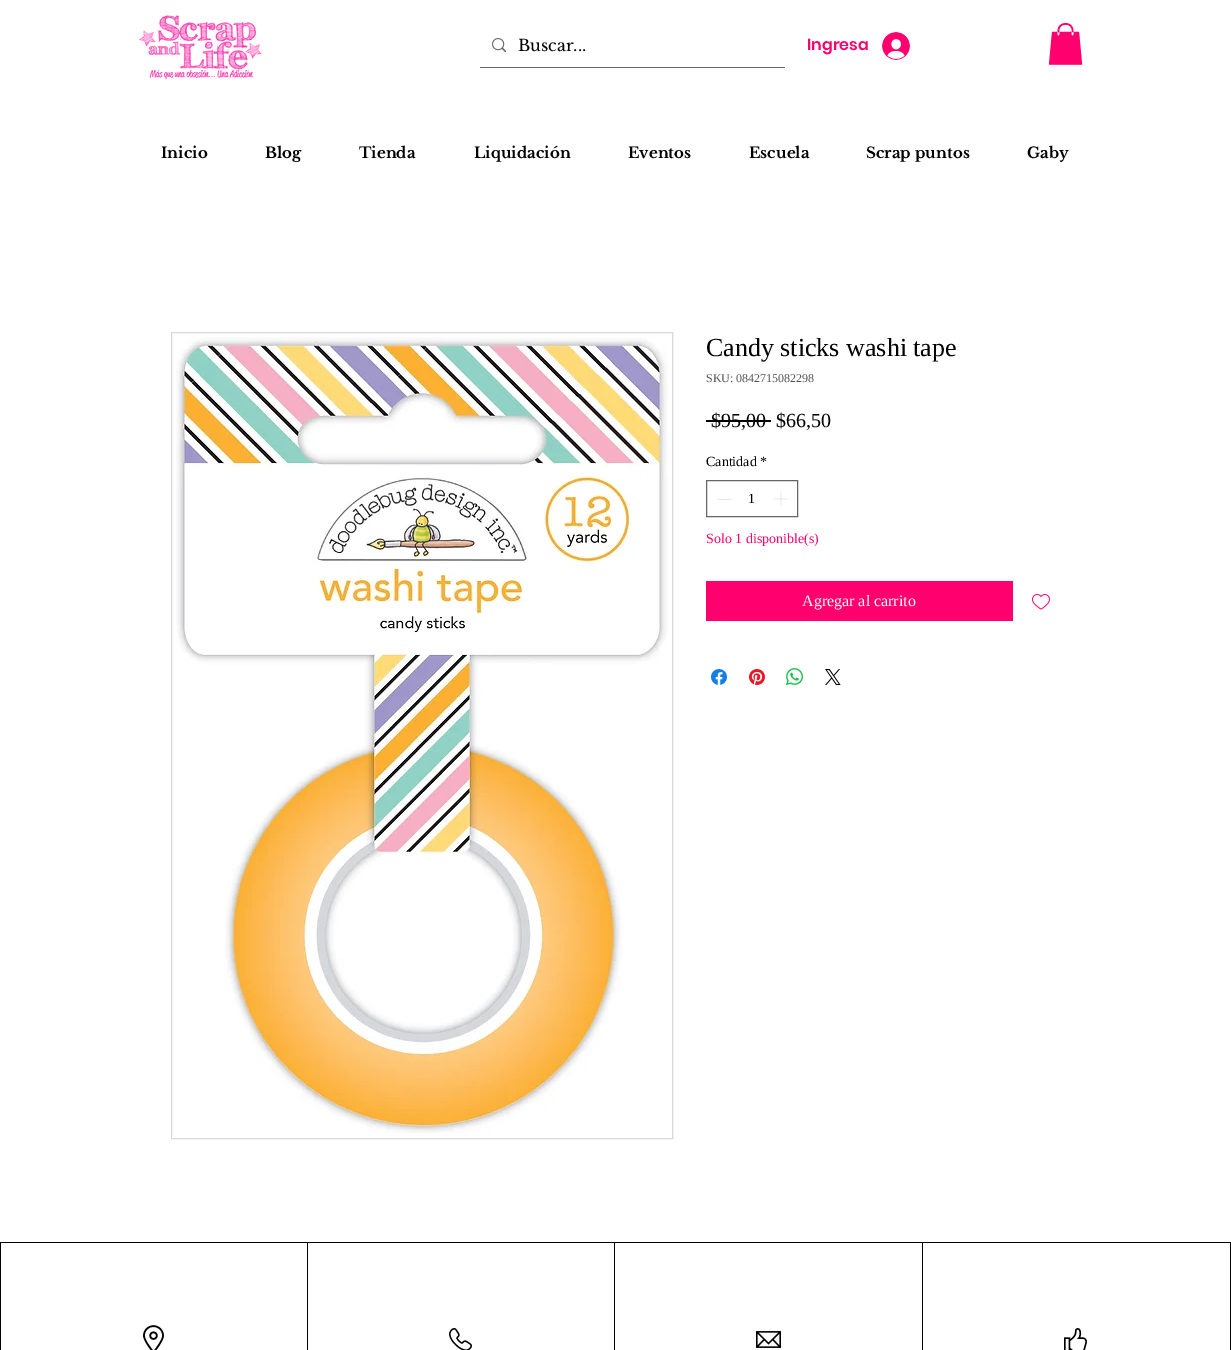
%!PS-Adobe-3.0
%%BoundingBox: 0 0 1231 1350
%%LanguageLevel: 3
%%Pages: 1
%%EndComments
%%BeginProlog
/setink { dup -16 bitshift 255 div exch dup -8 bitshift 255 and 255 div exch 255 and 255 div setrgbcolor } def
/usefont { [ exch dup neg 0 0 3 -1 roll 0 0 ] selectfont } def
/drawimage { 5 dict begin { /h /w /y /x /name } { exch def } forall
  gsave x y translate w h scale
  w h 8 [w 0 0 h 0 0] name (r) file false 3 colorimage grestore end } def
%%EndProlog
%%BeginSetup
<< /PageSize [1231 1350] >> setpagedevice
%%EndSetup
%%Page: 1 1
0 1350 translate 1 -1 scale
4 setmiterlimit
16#FFFFFF setink
0 0 1231 1350 rectfill
(img1.raw) 139 14 123 66 drawimage
16#666666 setink
480 67 305 1 rectfill
(img2.raw) 492 38 14 14 drawimage
/LibreBaskerville-Regular 16 usefont
16#000000 setink
518 51 moveto (Buscar...) show
/Poppins-SemiBold 16 usefont
16#FF006E setink
807 50 moveto (Ingresa) show
(img3.raw) 882 32 28 28 drawimage
(img4.raw) 1048 23 35 42 drawimage
/LibreBaskerville-Bold 15 usefont
16#000000 setink
[
    [(Inicio) 161 158]
    [(Blog) 265 158]
    [(Tienda) 359 158]
    [(Liquidación) 474 158]
    [(Eventos) 628 158]
    [(Escuela) 749 158]
    [(Scrap puntos) 866 158]
    [(Gaby) 1027 158]
] { aload pop moveto show } forall
16#D9D9D9 setink
171.5 332.5 501 806 rectstroke
(img5.raw) 176 337 492 796 drawimage
/LiberationSerif-Regular 26 usefont
16#000000 setink
706 356 moveto (Candy sticks washi tape) show
/LiberationSerif-Regular 12 usefont
16#545454 setink
706 382 moveto (SKU: 0842715082298) show
/LiberationSerif-Regular 20 usefont
16#000000 setink
711 427 moveto ($95,00) show
706 420 65 2 rectfill
776 427 moveto ($66,50) show
/LiberationSerif-Regular 14 usefont
706 466 moveto (Cantidad) show
760 466 moveto (*) show
16#666666 setink
706.5 480.5 91 36 rectstroke
16#E3E3E3 setink
718 499 13 1 rectfill
16#000000 setink
748 503 moveto (1) show
(img6.raw) 774 492 14 14 drawimage
16#FF006E setink
706 543 moveto (Solo 1 disponible\(s\)) show
706 581 307 40 rectfill
/LiberationSerif-Regular 16 usefont
16#FFFFFF setink
802 606 moveto (Agregar al carrito) show
(img7.raw) 1032 594 18 16 drawimage
(img8.raw) 711 669 16 16 drawimage
(img9.raw) 749 669 16 16 drawimage
(img10.raw) 786 668 17 17 drawimage
(img11.raw) 825 669 16 16 drawimage
16#000000 setink
0 1242 1231 108 rectfill
16#FFFFFF setink
1 1243 306 107 rectfill
(img12.raw) 143 1325 21 25 drawimage
308 1243 306 107 rectfill
(img13.raw) 449 1328 23 22 drawimage
615 1243 307 107 rectfill
(img14.raw) 756 1331 25 17 drawimage
923 1243 307 107 rectfill
(img15.raw) 1064 1328 23 22 drawimage
showpage
%%EOF
